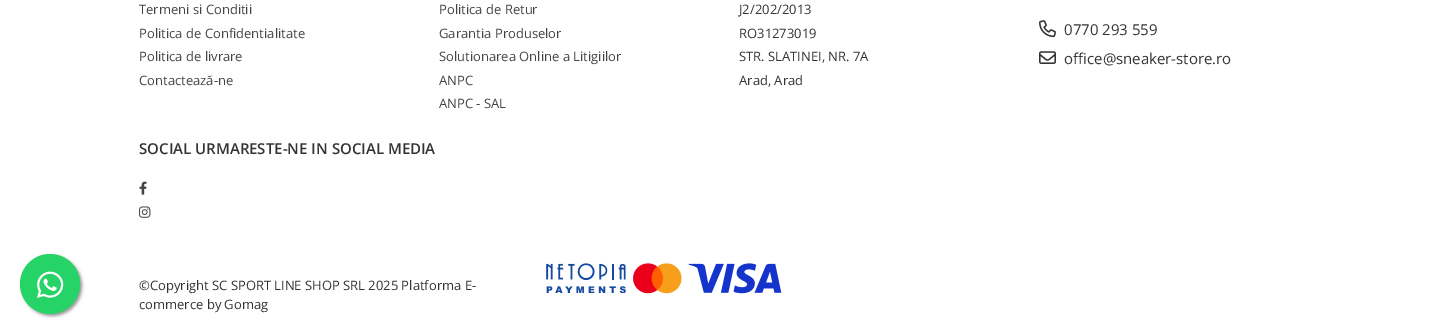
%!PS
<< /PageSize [1447 334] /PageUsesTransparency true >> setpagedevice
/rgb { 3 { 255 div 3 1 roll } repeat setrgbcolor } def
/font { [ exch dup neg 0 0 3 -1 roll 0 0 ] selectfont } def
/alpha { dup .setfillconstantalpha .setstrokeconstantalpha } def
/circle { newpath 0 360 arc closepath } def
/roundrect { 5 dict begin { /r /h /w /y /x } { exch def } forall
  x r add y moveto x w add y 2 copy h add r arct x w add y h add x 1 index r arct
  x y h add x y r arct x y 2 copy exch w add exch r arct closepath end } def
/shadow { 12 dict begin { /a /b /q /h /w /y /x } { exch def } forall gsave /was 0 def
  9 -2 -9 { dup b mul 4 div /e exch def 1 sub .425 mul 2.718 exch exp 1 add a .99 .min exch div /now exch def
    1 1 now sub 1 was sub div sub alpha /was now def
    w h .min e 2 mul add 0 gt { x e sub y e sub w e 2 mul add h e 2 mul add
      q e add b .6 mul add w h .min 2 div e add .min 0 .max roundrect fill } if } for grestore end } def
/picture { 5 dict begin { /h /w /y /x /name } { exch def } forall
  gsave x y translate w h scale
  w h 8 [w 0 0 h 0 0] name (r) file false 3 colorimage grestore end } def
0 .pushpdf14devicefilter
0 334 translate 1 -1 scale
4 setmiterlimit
255 255 255 rgb
0 0 1447 334 rectfill
153 153 153 rgb
22 256 60 60 30 1.5 1 shadow
37 211 102 rgb
50 284 30 circle fill
(img/1.rgb) 37 271 27 27 picture
(img/2.rgb) 1039 20 17 18 picture
(img/3.rgb) 1039 51 17 13 picture
(img/4.rgb) 139 181 8 14 picture
(img/5.rgb) 139 206 12 12 picture
(img/6.rgb) 546 263 236 31 picture
/OpenSans-Regular 13 font
68 68 68 rgb
[
  [(Termeni si Conditii) 139 14]
  [(Politica de Confidentialitate) 139 38]
  [(Politica de livrare) 139 61]
  [(Contactează-ne) 139 85]
  [(Politica de Retur) 439 14]
  [(Garantia Produselor) 439 38]
  [(Solutionarea Online a Litigiilor) 439 61]
  [(ANPC) 439 85]
  [(ANPC - SAL) 439 108]
] { aload pop moveto show } forall
51 51 51 rgb
[
  [(J2/202/2013) 739 14]
  [(RO31273019) 739 38]
  [(STR. SLATINEI, NR. 7A) 739 61]
  [(Arad, Arad) 739 85]
] { aload pop moveto show } forall
/OpenSans-Regular 15 font
1064 35 moveto (0770 293 559) show
1064 64 moveto (office@sneaker-store.ro) show
/OpenSans-SemiBold 15 font
139 154 moveto (SOCIAL URMARESTE-NE IN SOCIAL MEDIA) show
/OpenSans-Regular 13 font
139 290 moveto (©Copyright SC SPORT LINE SHOP SRL 2025 Platforma E-) show
139 309 moveto (commerce by Gomag) show
.poppdf14devicefilter showpage
